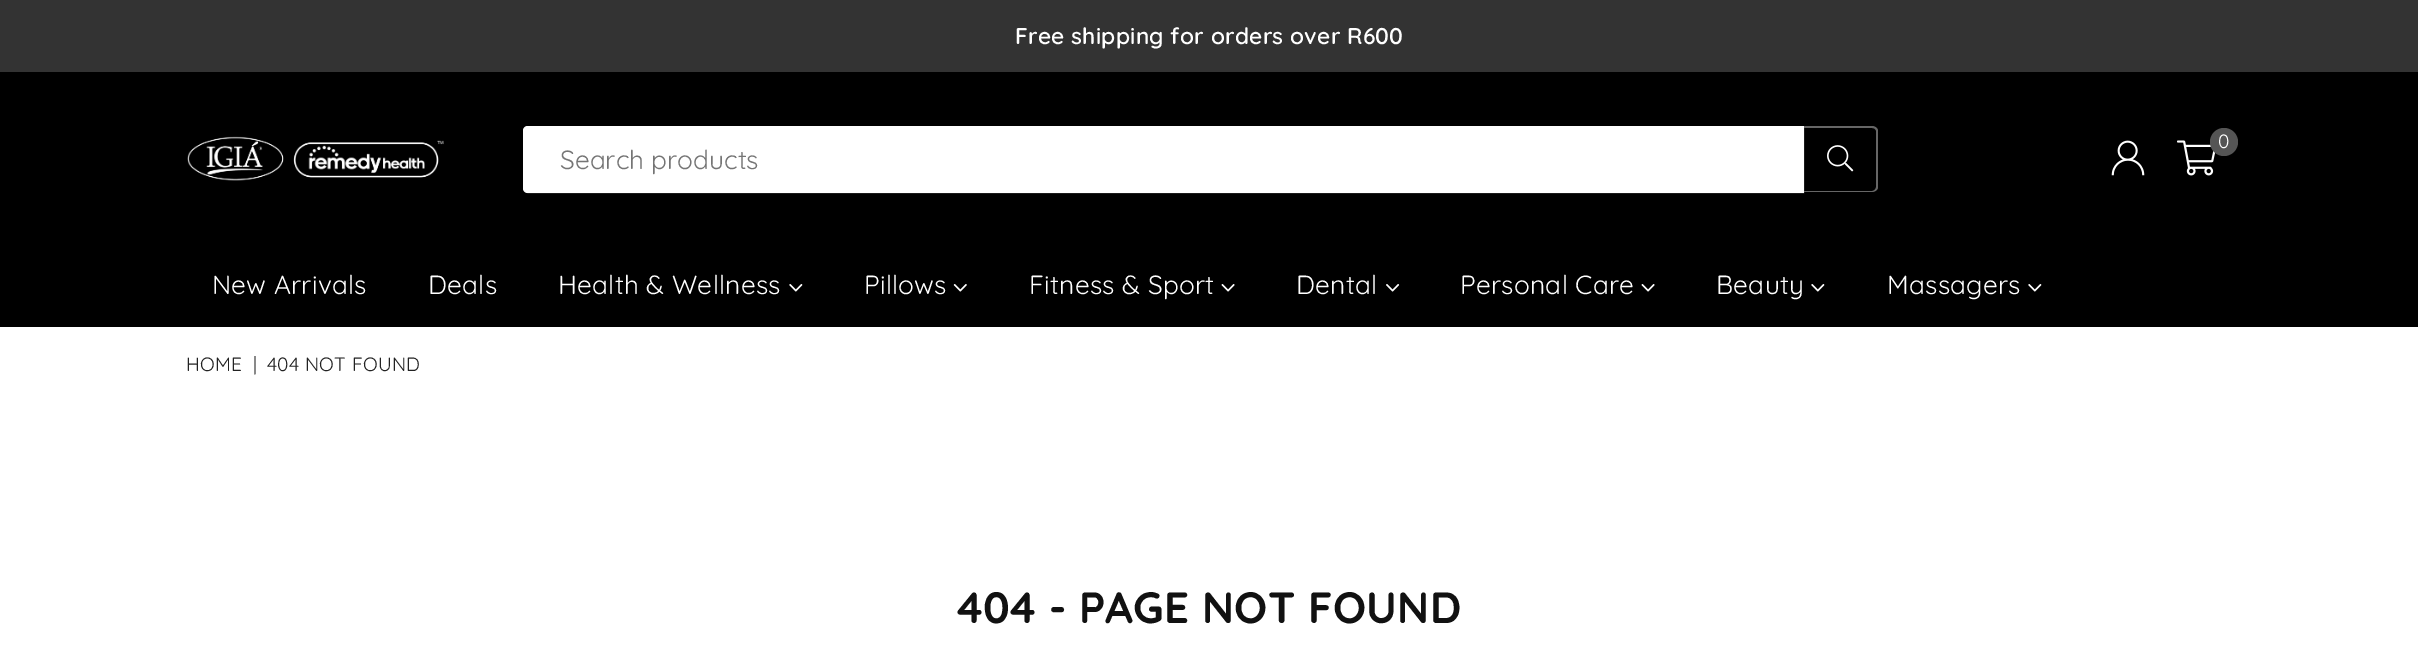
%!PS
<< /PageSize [2418 655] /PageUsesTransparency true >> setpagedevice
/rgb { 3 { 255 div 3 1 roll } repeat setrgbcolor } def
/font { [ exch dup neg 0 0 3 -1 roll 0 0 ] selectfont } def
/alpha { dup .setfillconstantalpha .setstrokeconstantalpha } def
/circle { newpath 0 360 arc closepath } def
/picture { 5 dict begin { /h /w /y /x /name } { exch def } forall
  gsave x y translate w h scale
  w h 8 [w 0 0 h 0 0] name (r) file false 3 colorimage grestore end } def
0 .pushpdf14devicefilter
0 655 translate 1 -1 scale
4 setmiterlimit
255 255 255 rgb
0 0 2418 655 rectfill
51 51 51 rgb
0 0 2418 72 rectfill
0 0 0 rgb
0 72 2418 255 rectfill
(img/1.rgb) 187 136 257 45 picture
255 255 255 rgb
528 126 moveto 1804 126 lineto 1804 193 lineto 528 193 lineto 525 193 523 191 523 188 curveto 523 131 lineto 523 128 525 126 528 126 curveto closepath fill
0.4 alpha
2 setlinewidth
528 127 moveto 1803 127 lineto 1803 192 lineto 528 192 lineto 526 192 524 190 524 188 curveto 524 131 lineto 524 129 526 127 528 127 curveto closepath stroke
1 alpha
102 102 102 rgb
1804 126 moveto 1872 126 lineto 1875 126 1878 128 1878 131 curveto 1878 187 lineto 1878 190 1875 192 1872 192 curveto 1804 192 lineto closepath 1804 128 moveto 1872 128 lineto 1874 128 1876 129 1876 131 curveto 1876 187 lineto 1876 189 1874 191 1872 191 curveto 1804 191 lineto closepath eofill
(img/2.rgb) 1827 145 27 27 picture
(img/3.rgb) 2111 140 34 36 picture
(img/4.rgb) 2177 140 39 36 picture
85 85 85 rgb
2224 142 14 circle fill
(img/5.rgb) 789 284 14 8 picture
(img/6.rgb) 953 284 14 8 picture
(img/7.rgb) 1221 284 14 8 picture
(img/8.rgb) 1386 284 14 8 picture
(img/7.rgb) 1641 284 14 8 picture
(img/5.rgb) 1811 284 14 8 picture
(img/5.rgb) 2028 284 14 8 picture
/Quicksand-SemiBold 22.75 font
255 255 255 rgb
1015 44 moveto 0.25 0 (Free shipping for orders over R600) ashow
/Quicksand-Regular 26.25 font
117 117 117 rgb
560 169 moveto (Search products) show
/Quicksand-Regular 19.25 font
255 255 255 rgb
2218 148 moveto 0.25 0 (0) ashow
/Quicksand-Regular 26.25 font
212 294 moveto 0.25 0 (New Arrivals) ashow
428 294 moveto 0.25 0 (Deals) ashow
558 294 moveto 0.25 0 (Health & Wellness) ashow
864 294 moveto 0.25 0 (Pillows) ashow
1029 294 moveto 0.25 0 (Fitness & Sport) ashow
1296 294 moveto 0.25 0 (Dental) ashow
1460 294 moveto 0.25 0 (Personal Care) ashow
1716 294 moveto 0.25 0 (Beauty) ashow
1887 294 moveto 0.25 0 (Massagers) ashow
/Quicksand-Regular 19.25 font
34 34 34 rgb
186 371 moveto 0.25 0 (HOME) ashow
253 371 moveto 0.25 0 (|) ashow
267 371 moveto 0.25 0 (404 NOT FOUND) ashow
/Quicksand-Bold 43.75 font
17 17 17 rgb
957 623 moveto 0.25 0 (404 - PAGE NOT FOUND) ashow
.poppdf14devicefilter showpage
